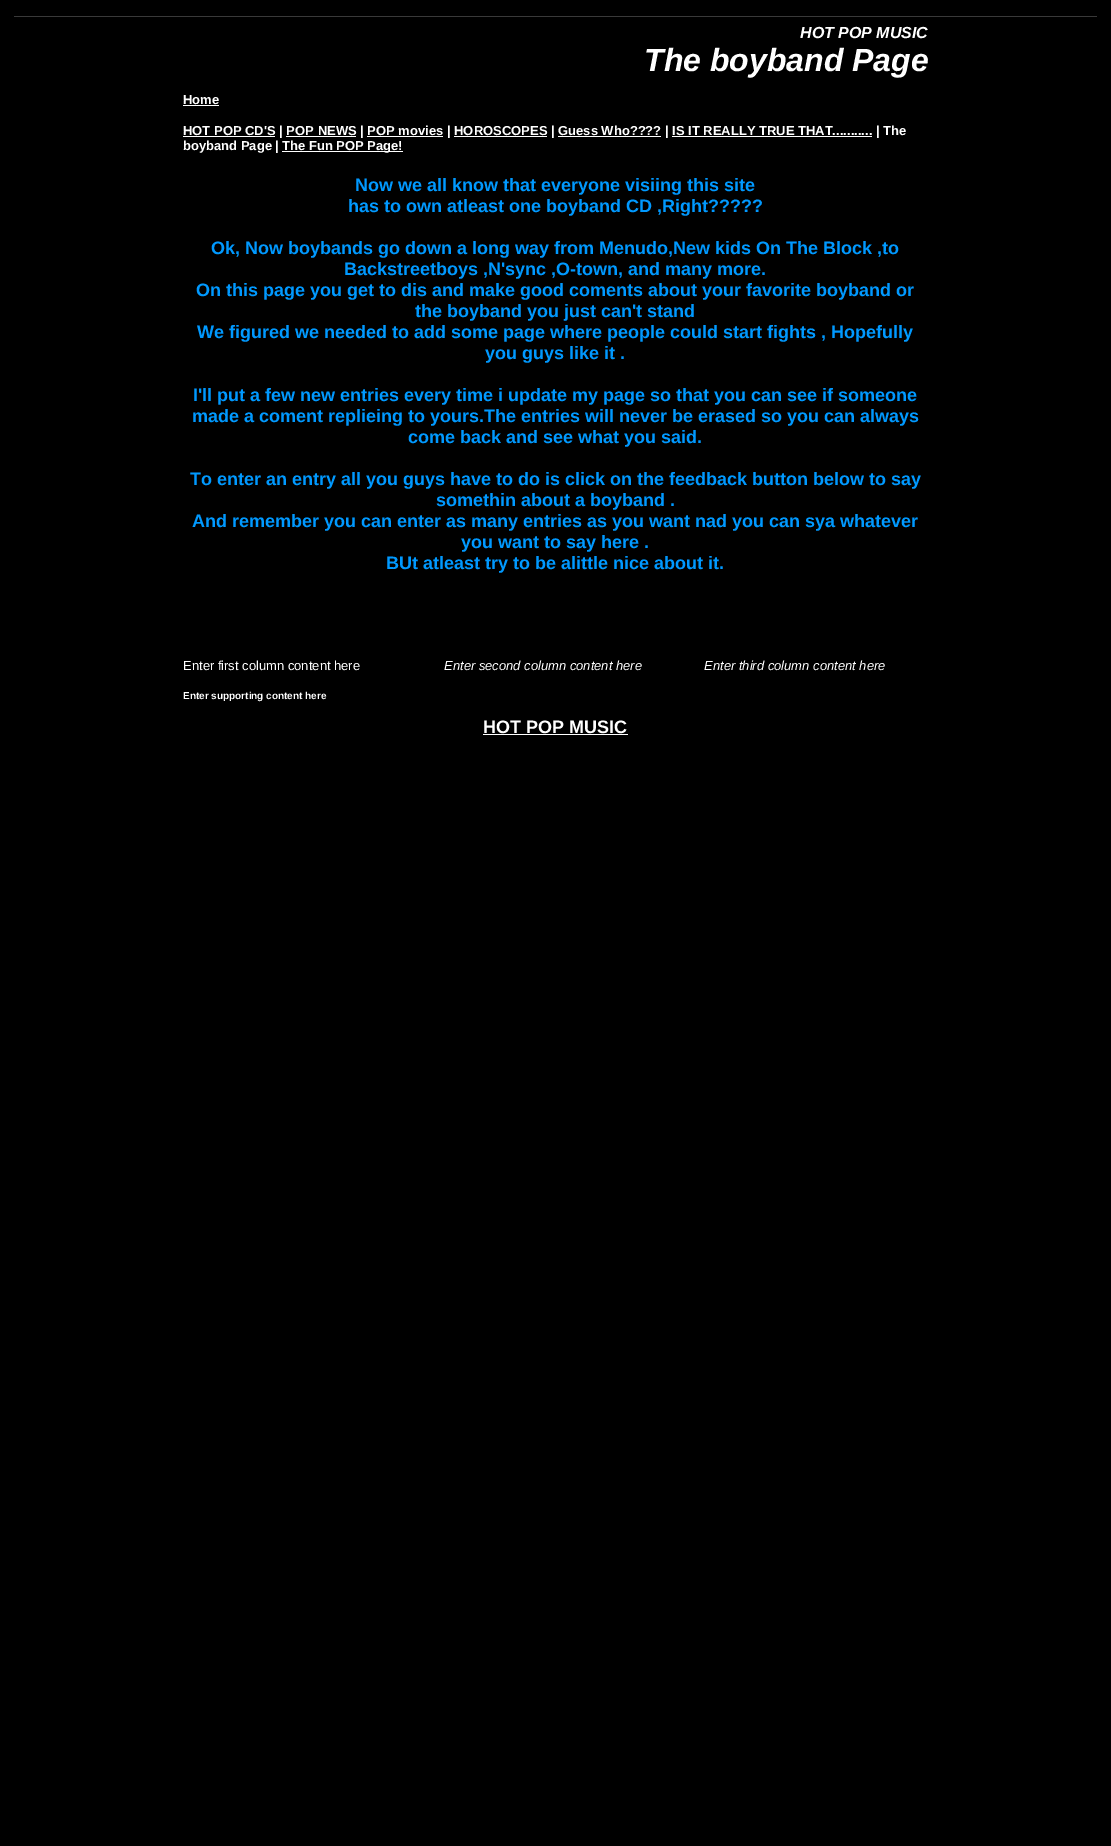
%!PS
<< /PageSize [1111 1846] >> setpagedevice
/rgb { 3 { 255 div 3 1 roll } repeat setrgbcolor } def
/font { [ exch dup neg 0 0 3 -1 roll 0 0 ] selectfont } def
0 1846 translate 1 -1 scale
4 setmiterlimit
0 0 0 rgb
0 0 1111 1846 rectfill
[
  [14 16 1083 1 57 57 57]
  [183 105 36 1 255 255 255]
  [183 136 92 1 255 255 255]
  [286 136 70 1 255 255 255]
  [367 136 76 1 255 255 255]
  [454 136 93 1 255 255 255]
  [558 136 103 1 255 255 255]
  [672 136 200 1 255 255 255]
  [282 151 121 1 255 255 255]
  [483 734 145 1 255 255 255]
] { aload pop rgb rectfill } forall
/LiberationSans-BoldItalic 16 font
800 38 moveto (HOT POP MUSIC) show
/LiberationSans-BoldItalic 32 font
644 71 moveto (The boyband Page) show
/LiberationSans-Bold 13 font
[
  [(Home) 183 104]
  [(HOT POP CD'S | POP NEWS | POP movies | HOROSCOPES | Guess Who???? | IS IT REALLY TRUE THAT........... | The) 183 135]
  [(boyband Page |) 183 150]
  [(The Fun POP Page!) 282 150]
] { aload pop moveto show } forall
/LiberationSans-Bold 18 font
0 153 255 rgb
[
  [(Now we all know that everyone visiing this site) 355 191]
  [(has to own atleast one boyband CD ,Right?????) 348 212]
  [(Ok, Now boybands go down a long way from Menudo,New kids On The Block ,to) 211 254]
  [(Backstreetboys ,N'sync ,O-town, and many more.) 344 275]
  [(On this page you get to dis and make good coments about your favorite boyband or) 196 296]
  [(the boyband you just can't stand) 415 317]
  [(We figured we needed to add some page where people could start fights , Hopefully) 197 338]
  [(you guys like it .) 485 359]
  [(I'll put a few new entries every time i update my page so that you can see if someone) 193 401]
  [(made a coment replieing to yours.The entries will never be erased so you can always) 192 422]
  [(come back and see what you said.) 408 443]
  [(To enter an entry all you guys have to do is click on the feedback button below to say) 190 485]
  [(somethin about a boyband .) 436 506]
  [(And remember you can enter as many entries as you want nad you can sya whatever) 192 527]
  [(you want to say here .) 461 548]
  [(BUt atleast try to be alittle nice about it.) 386 569]
] { aload pop moveto show } forall
/LiberationSans-Regular 13 font
255 255 255 rgb
183 670 moveto (Enter first column content here) show
/LiberationSans-Italic 13 font
444 670 moveto (Enter second column content here) show
704 670 moveto (Enter third column content here) show
/LiberationSans-Bold 10 font
183 699 moveto (Enter supporting content here) show
/LiberationSans-Bold 18 font
483 733 moveto (HOT POP MUSIC) show
showpage
